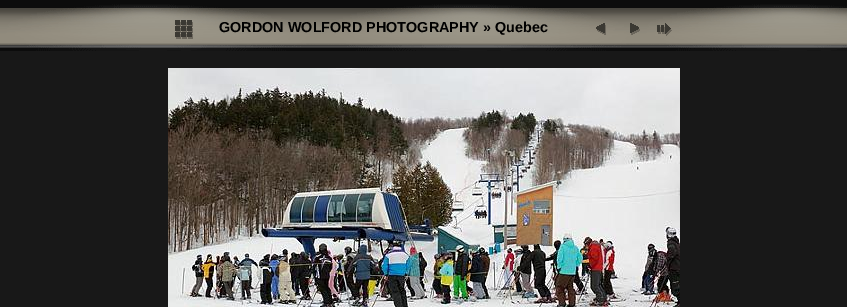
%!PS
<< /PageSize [847 307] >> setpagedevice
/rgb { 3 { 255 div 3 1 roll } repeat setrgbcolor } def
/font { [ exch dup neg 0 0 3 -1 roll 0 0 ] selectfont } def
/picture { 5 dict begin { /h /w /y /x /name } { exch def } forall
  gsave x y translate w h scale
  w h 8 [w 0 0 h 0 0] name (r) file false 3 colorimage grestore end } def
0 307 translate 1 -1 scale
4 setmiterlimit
24 24 24 rgb
0 0 847 307 rectfill
(img/1.rgb) 0 0 847 51 picture
(img/2.rgb) 175 20 18 19 picture
(img/3.rgb) 596 23 10 12 picture
(img/4.rgb) 630 23 10 12 picture
(img/5.rgb) 657 23 15 13 picture
(img/6.rgb) 168 68 512 239 picture
/LiberationSans-Bold 14.4 font
0 0 0 rgb
219 32 moveto (GORDON WOLFORD PHOTOGRAPHY » Quebec) show
showpage
